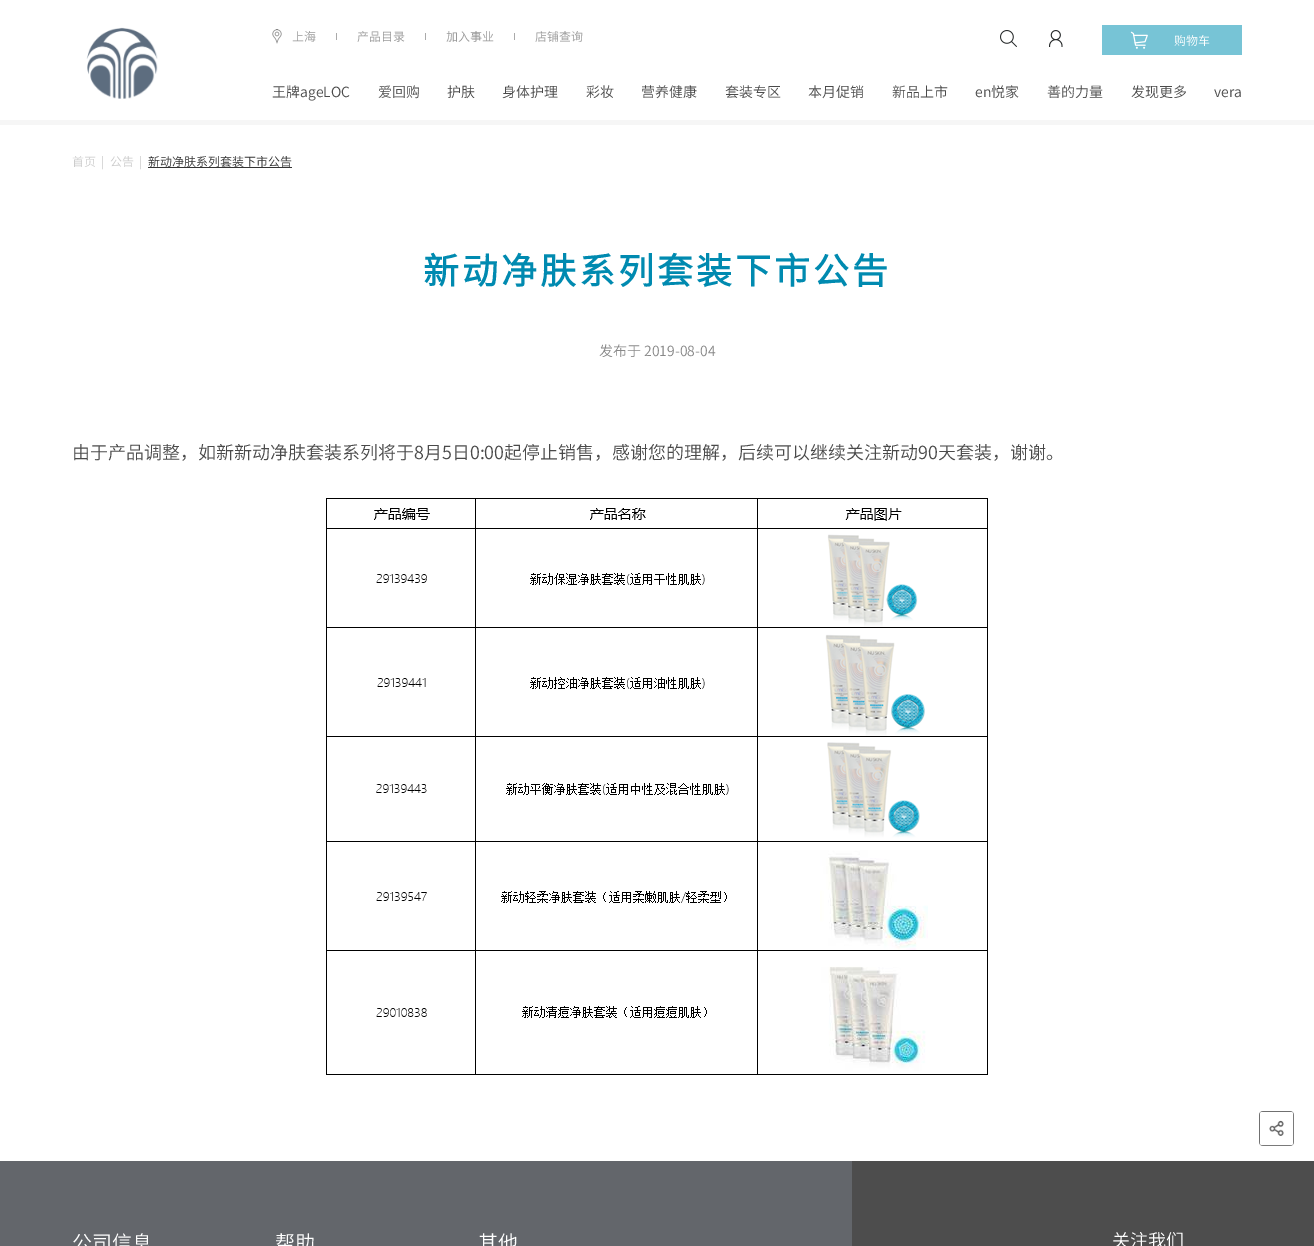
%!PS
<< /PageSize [1314 1246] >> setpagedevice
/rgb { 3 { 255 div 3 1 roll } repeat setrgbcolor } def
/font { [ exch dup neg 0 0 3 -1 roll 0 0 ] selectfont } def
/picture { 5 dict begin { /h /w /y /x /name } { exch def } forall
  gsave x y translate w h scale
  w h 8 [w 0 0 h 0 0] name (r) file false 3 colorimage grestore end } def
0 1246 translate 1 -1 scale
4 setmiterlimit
255 255 255 rgb
0 0 1314 1246 rectfill
(img/1.rgb) 86 27 72 72 picture
(img/2.rgb) 272 29 10 15 picture
[
  [336 33 1 7 170 170 170]
  [425 33 1 7 170 170 170]
  [514 33 1 7 170 170 170]
] { aload pop rgb rectfill } forall
(img/3.rgb) 1000 30 17 17 picture
(img/4.rgb) 1049 30 14 17 picture
119 196 214 rgb
1102 25 140 30 rectfill
(img/5.rgb) 1130 31 18 18 picture
246 246 246 rgb
0 120 1314 5 rectfill
51 51 51 rgb
148 167 144 1 rectfill
(img/6.rgb) 326 498 662 577 picture
(img/7.rgb) 1259 1111 35 35 picture
(img/8.rgb) 0 1161 1314 85 picture
99 102 107 rgb
841 1161 11 85 rectfill
/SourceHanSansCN-Light 12 font
153 153 153 rgb
[
  [(上海) 292 41]
  [(产品目录) 357 41]
  [(加入事业) 446 41]
  [(店铺查询) 535 41]
] { aload pop moveto show } forall
255 255 255 rgb
1174 45 moveto (购物车) show
/SourceHanSansCN-Light 14 font
74 74 74 rgb
[
  [(王牌ageLOC) 272 97]
  [(爱回购) 378 97]
  [(护肤) 447 97]
  [(身体护理) 502 97]
  [(彩妆) 586 97]
  [(营养健康) 641 97]
  [(套装专区) 725 97]
  [(本月促销) 808 97]
  [(新品上市) 892 97]
  [(en悦家) 975 97]
  [(善的力量) 1047 97]
  [(发现更多) 1131 97]
  [(vera) 1214 97]
] { aload pop moveto show } forall
/SourceHanSansCN-Light 12 font
204 204 204 rgb
[
  [(首页) 72 166]
  [(|) 101 166]
  [(公告) 110 166]
  [(|) 139 166]
] { aload pop moveto show } forall
51 51 51 rgb
148 166 moveto (新动净肤系列套装下市公告) show
/SourceHanSansCN-Bold 36 font
0 138 176 rgb
423 284 moveto 3 0 (新动净肤系列套装下市公告) ashow
/SourceHanSansCN-Light 14 font
136 136 136 rgb
599 356 moveto (发布于 2019-08-04) show
/SourceHanSansCN-Light 18 font
74 74 74 rgb
72 459 moveto (由于产品调整，如新新动净肤套装系列将于8月5日0:00起停止销售，感谢您的理解，后续可以继续关注新动90天套装，谢谢。) show
/SourceHanSansCN-Light 20 font
255 255 255 rgb
[
  [(公司信息) 72 1250]
  [(帮助) 275 1250]
  [(其他) 478 1250]
] { aload pop moveto show } forall
/SourceHanSansCN-Light 18 font
1112 1247 moveto (关注我们) show
showpage
